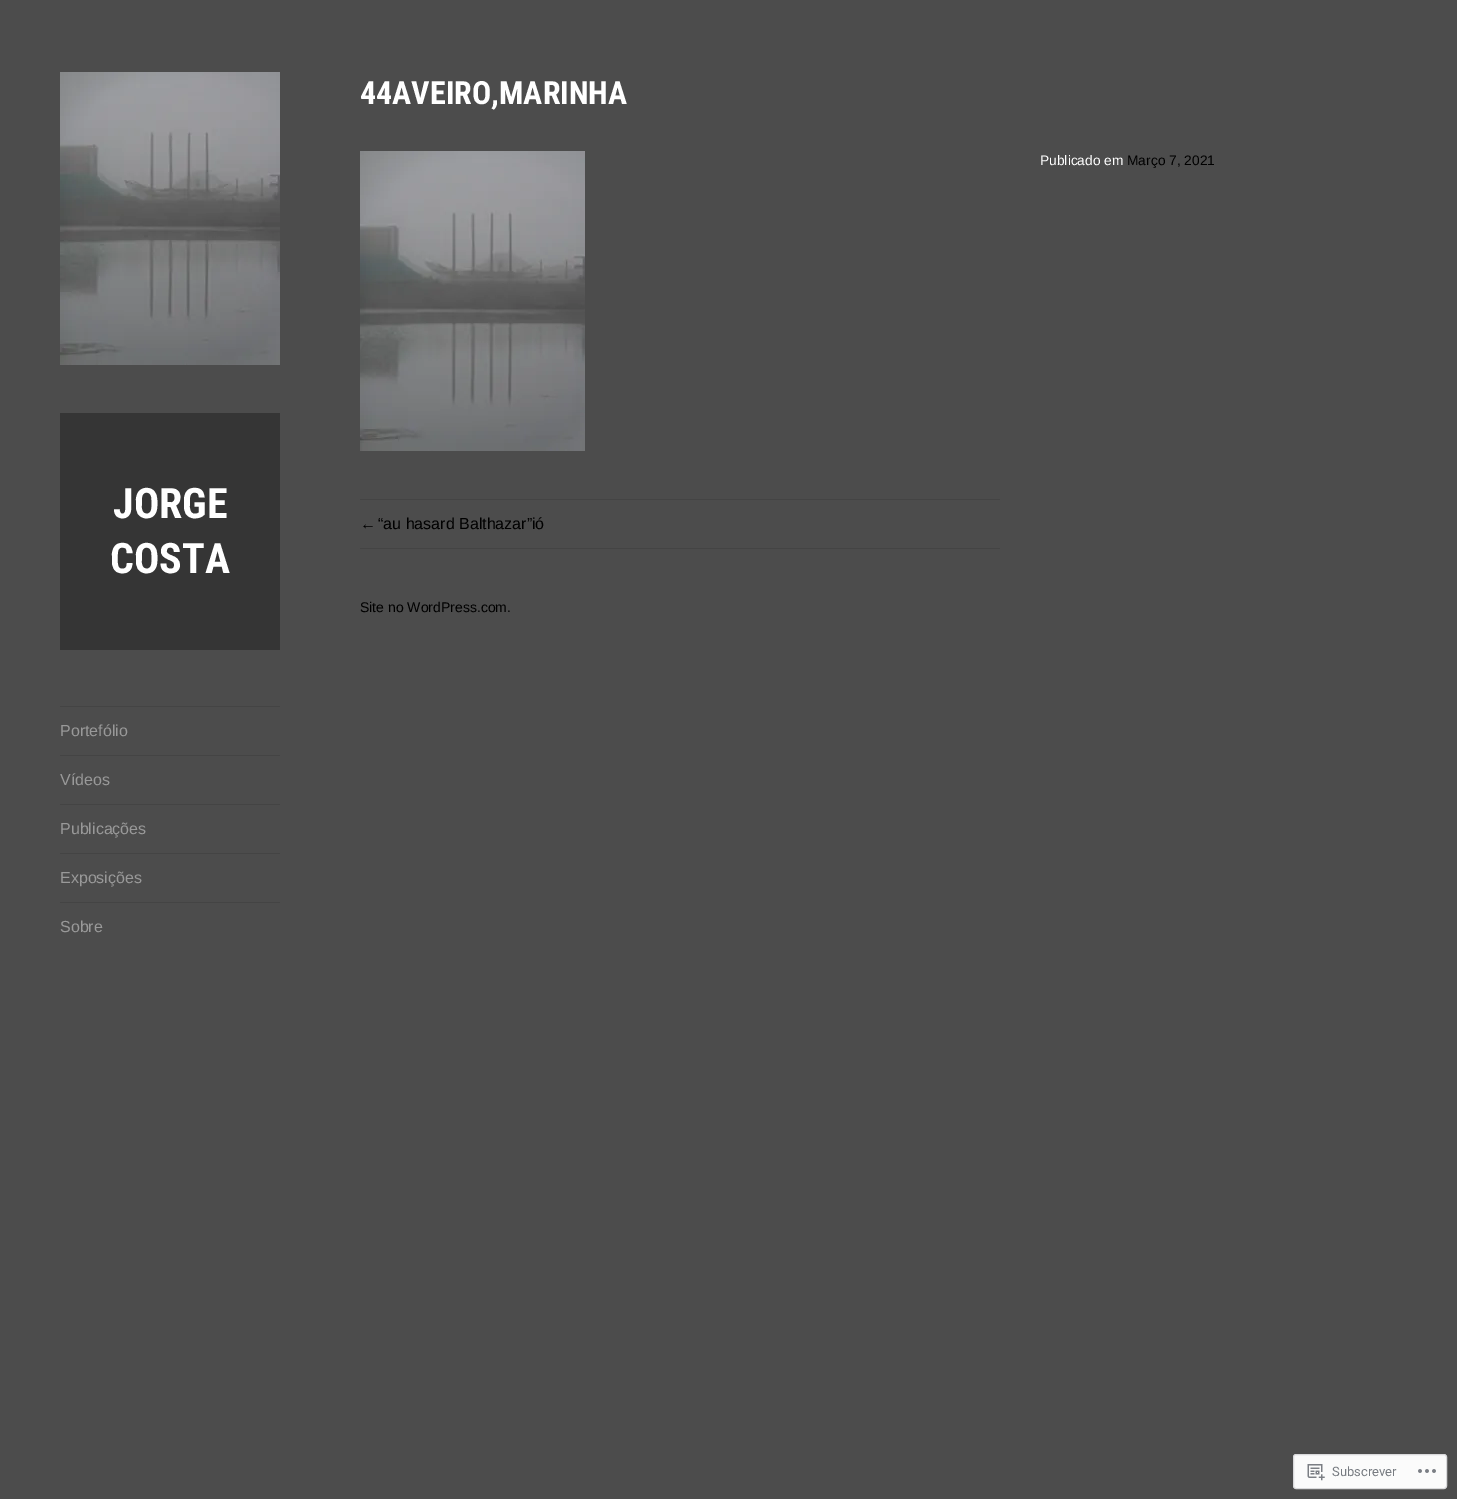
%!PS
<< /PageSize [1457 1499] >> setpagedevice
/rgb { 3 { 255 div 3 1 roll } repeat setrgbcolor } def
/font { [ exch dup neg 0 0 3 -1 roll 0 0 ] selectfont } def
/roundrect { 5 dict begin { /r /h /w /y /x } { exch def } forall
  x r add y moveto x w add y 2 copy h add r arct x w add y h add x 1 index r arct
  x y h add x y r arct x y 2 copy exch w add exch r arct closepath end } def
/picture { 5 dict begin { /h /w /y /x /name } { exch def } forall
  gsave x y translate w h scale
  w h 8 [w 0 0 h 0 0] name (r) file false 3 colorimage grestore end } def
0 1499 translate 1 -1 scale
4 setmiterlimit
76 76 76 rgb
0 0 1457 1499 rectfill
(img/1.rgb) 360 151 225 300 picture
68 68 68 rgb
360 499 640 1 rectfill
360 548 640 1 rectfill
(img/2.rgb) 60 72 220 293 picture
[
  [60 413 220 237 53 53 53]
  [60 706 220 1 68 68 68]
  [60 755 220 1 68 68 68]
  [60 804 220 1 68 68 68]
  [60 853 220 1 68 68 68]
  [60 902 220 1 68 68 68]
] { aload pop rgb rectfill } forall
251 251 251 rgb
1293.5 1454.5 153 34 2.5 roundrect gsave fill grestore
217 217 219 rgb
stroke
(img/3.rgb) 1307 1464 18 17 picture
(img/4.rgb) 1418 1469 18 4 picture
/RobotoCondensed-Bold 32 font
255 255 255 rgb
360 104 moveto (44AVEIRO,MARINHA) show
/Arimo-Regular 13.75 font
1040 165 moveto (Publicado em) show
0 0 0 rgb
1127 165 moveto (Março 7, 2021) show
/LiberationSans-Regular 16 font
360 529 moveto (←) show
/Arimo-Regular 16 font
378 529 moveto (“au hasard Balthazar”ió) show
/Arimo-Regular 14 font
360 612 moveto (Site no WordPress.com.) show
/RobotoCondensed-Bold 42 font
255 255 255 rgb
113 518 moveto (JORGE) show
110 573 moveto (COSTA) show
/Arimo-Regular 16 font
153 153 153 rgb
[
  [(Portefólio) 60 736]
  [(Vídeos) 60 785]
  [(Publicações) 60 834]
  [(Exposições) 60 883]
  [(Sobre) 60 932]
] { aload pop moveto show } forall
/Roboto-Regular 13 font
119 123 129 rgb
1332 1476 moveto (Subscrever) show
showpage
